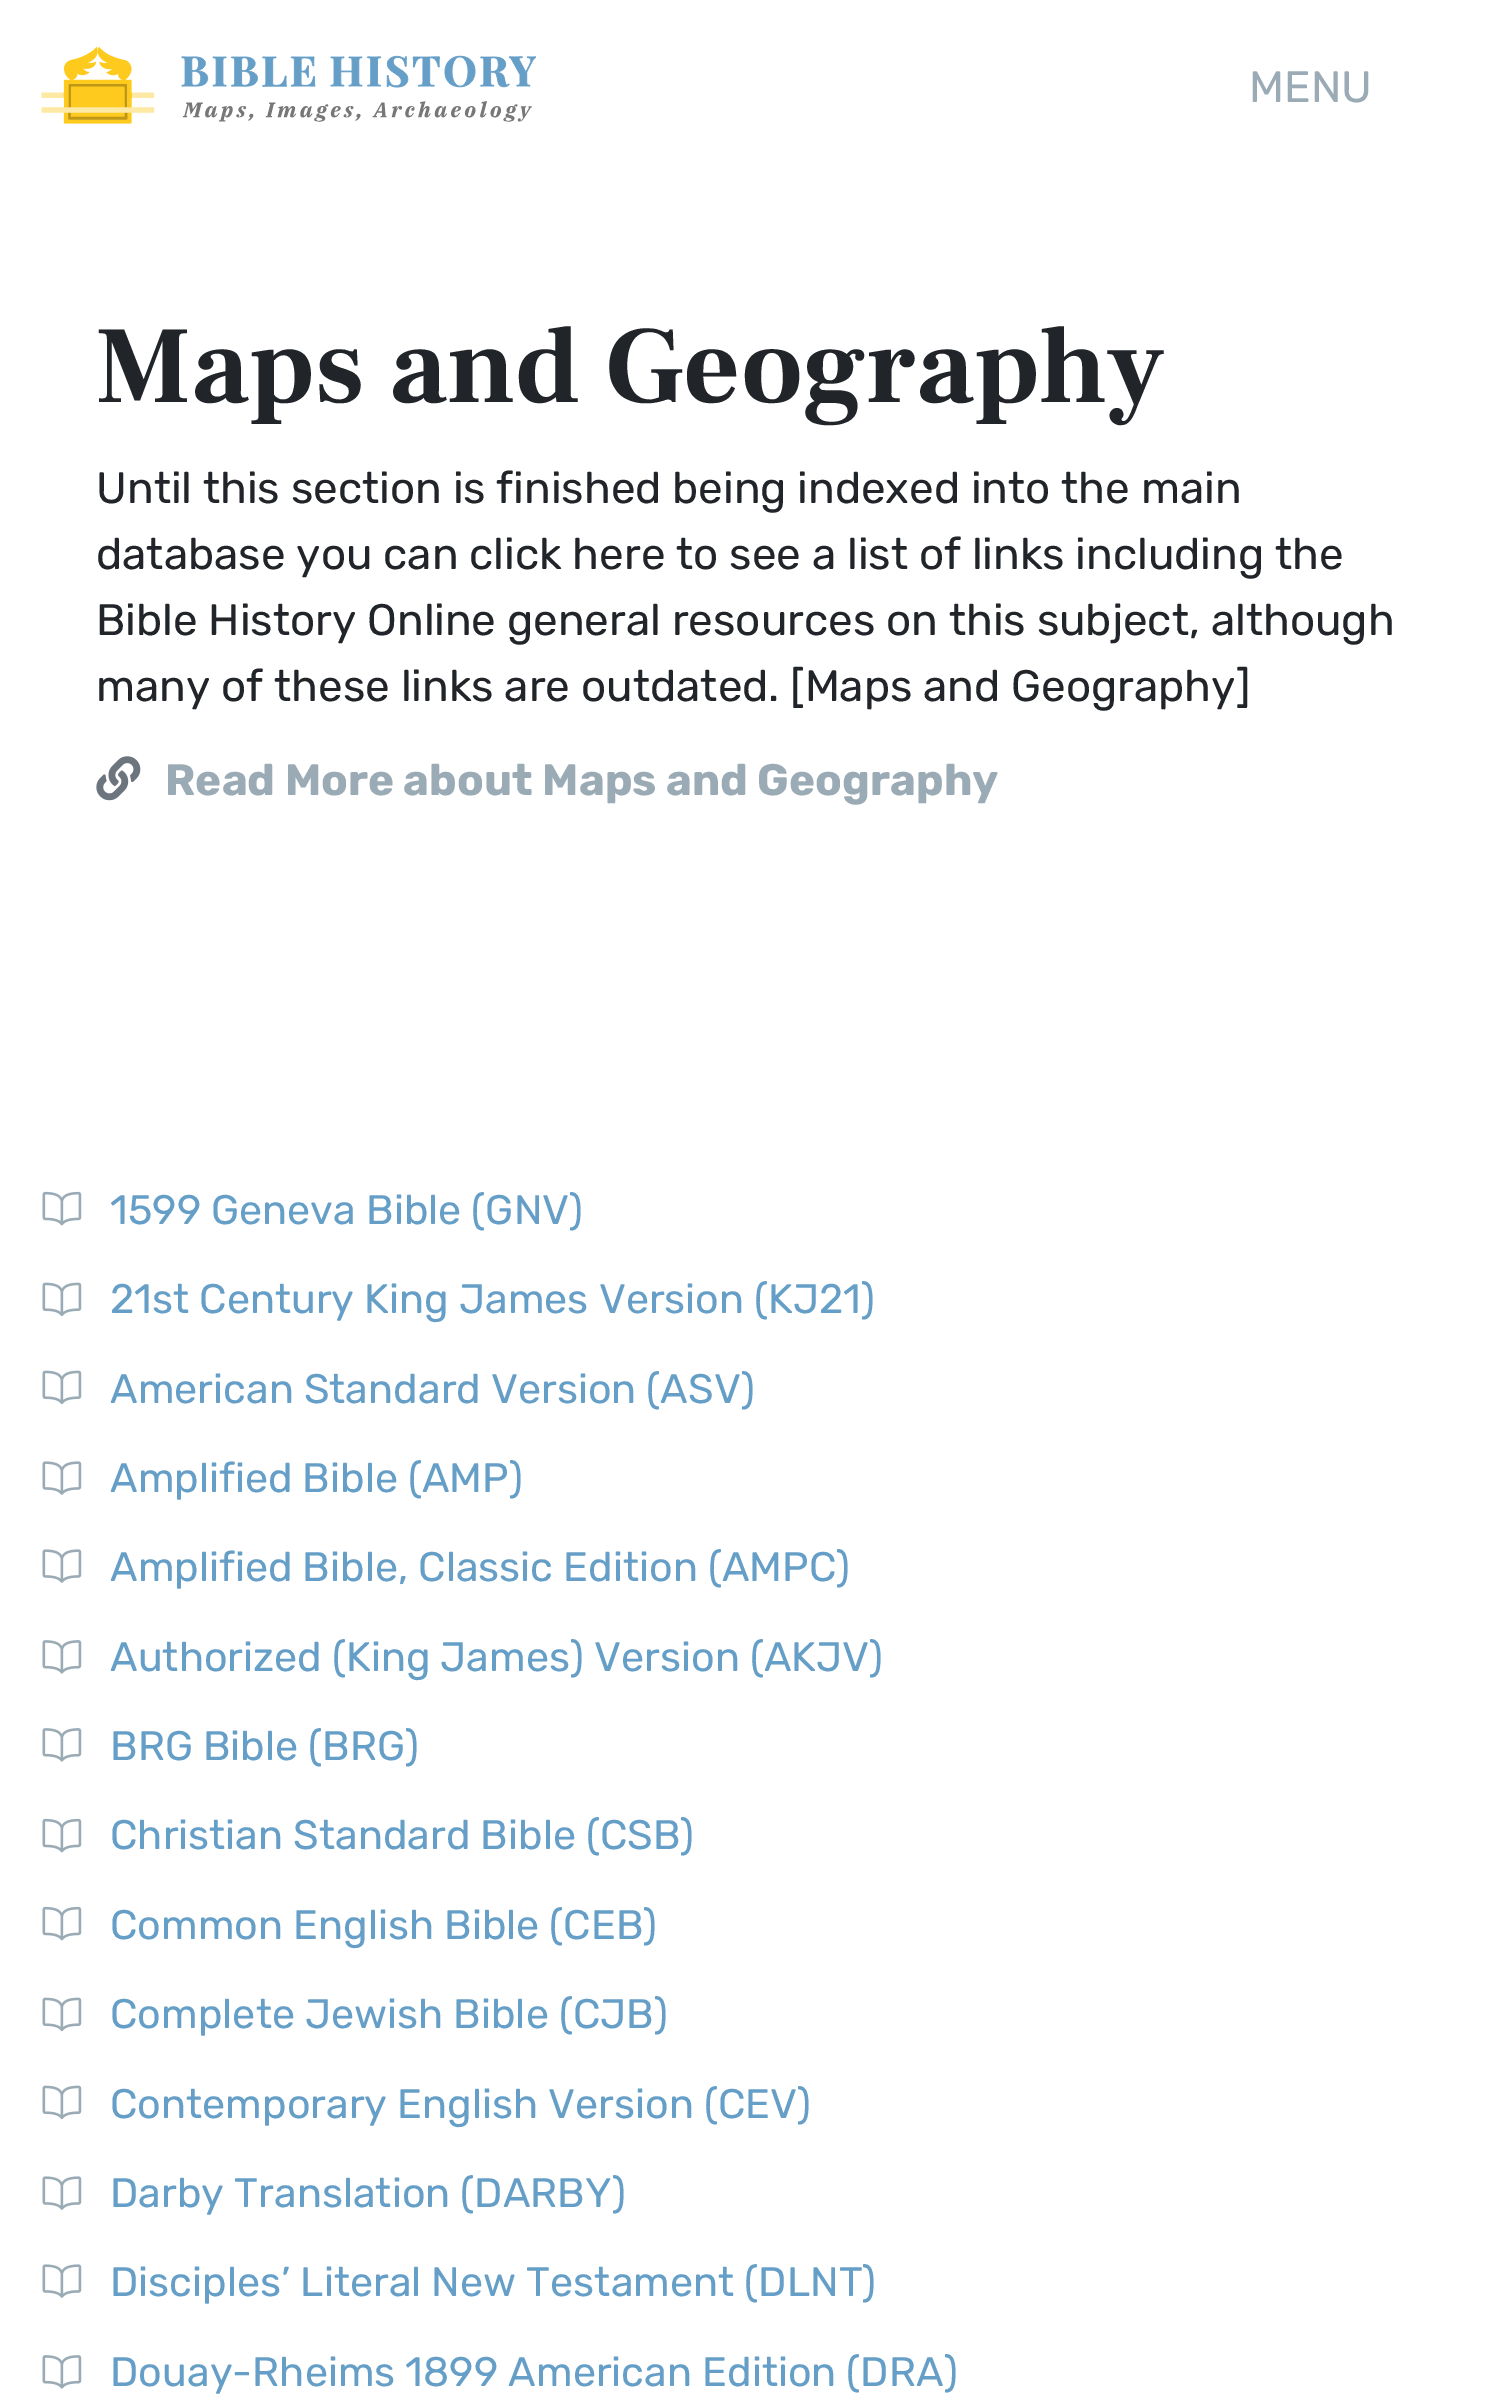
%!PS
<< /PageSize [1508 2406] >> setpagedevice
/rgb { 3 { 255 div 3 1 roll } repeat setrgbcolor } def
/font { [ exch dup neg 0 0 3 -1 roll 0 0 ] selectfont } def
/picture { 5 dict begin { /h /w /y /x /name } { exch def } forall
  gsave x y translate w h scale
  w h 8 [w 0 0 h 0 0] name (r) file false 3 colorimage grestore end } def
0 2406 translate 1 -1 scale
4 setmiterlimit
255 255 255 rgb
0 0 1508 2406 rectfill
(img/1.rgb) 41 47 495 77 picture
(img/2.rgb) 96 756 45 45 picture
(img/3.rgb) 42 1191 40 35 picture
(img/4.rgb) 42 1282 40 35 picture
(img/4.rgb) 42 1370 40 35 picture
(img/5.rgb) 42 1461 40 34 picture
(img/5.rgb) 42 1549 40 34 picture
(img/6.rgb) 42 1640 40 34 picture
(img/6.rgb) 42 1728 40 34 picture
(img/3.rgb) 42 1818 40 35 picture
(img/3.rgb) 42 1906 40 35 picture
(img/4.rgb) 42 1997 40 35 picture
(img/4.rgb) 42 2085 40 35 picture
(img/5.rgb) 42 2176 40 34 picture
(img/5.rgb) 42 2264 40 34 picture
(img/6.rgb) 42 2355 40 34 picture
/Rubik-Regular 44 font
155 171 182 rgb
1249 102 moveto (MENU) show
/FrankRuhlLibre-Bold 110 font
33 37 41 rgb
96 402 moveto (Maps and Geography) show
/Rubik-Regular 44 font
[
  [(Until this section is finished being indexed into the main) 96 503]
  [(database you can click here to see a list of links including the) 96 569]
  [(Bible History Online general resources on this subject, although) 96 635]
  [(many of these links are outdated. [Maps and Geography]) 96 701]
] { aload pop moveto show } forall
/Rubik-Bold 44 font
155 171 182 rgb
165 795 moveto (Read More about Maps and Geography) show
/Rubik-Regular 41.25 font
101 158 199 rgb
[
  [(1599 Geneva Bible \(GNV\)) 110 1224]
  [(21st Century King James Version \(KJ21\)) 110 1313]
  [(American Standard Version \(ASV\)) 110 1403]
  [(Amplified Bible \(AMP\)) 110 1492]
  [(Amplified Bible, Classic Edition \(AMPC\)) 110 1581]
  [(Authorized \(King James\) Version \(AKJV\)) 110 1671]
  [(BRG Bible \(BRG\)) 110 1760]
  [(Christian Standard Bible \(CSB\)) 110 1849]
  [(Common English Bible \(CEB\)) 110 1939]
  [(Complete Jewish Bible \(CJB\)) 110 2028]
  [(Contemporary English Version \(CEV\)) 110 2118]
  [(Darby Translation \(DARBY\)) 110 2207]
  [(Disciples’ Literal New Testament \(DLNT\)) 110 2296]
  [(Douay-Rheims 1899 American Edition \(DRA\)) 110 2386]
] { aload pop moveto show } forall
showpage
